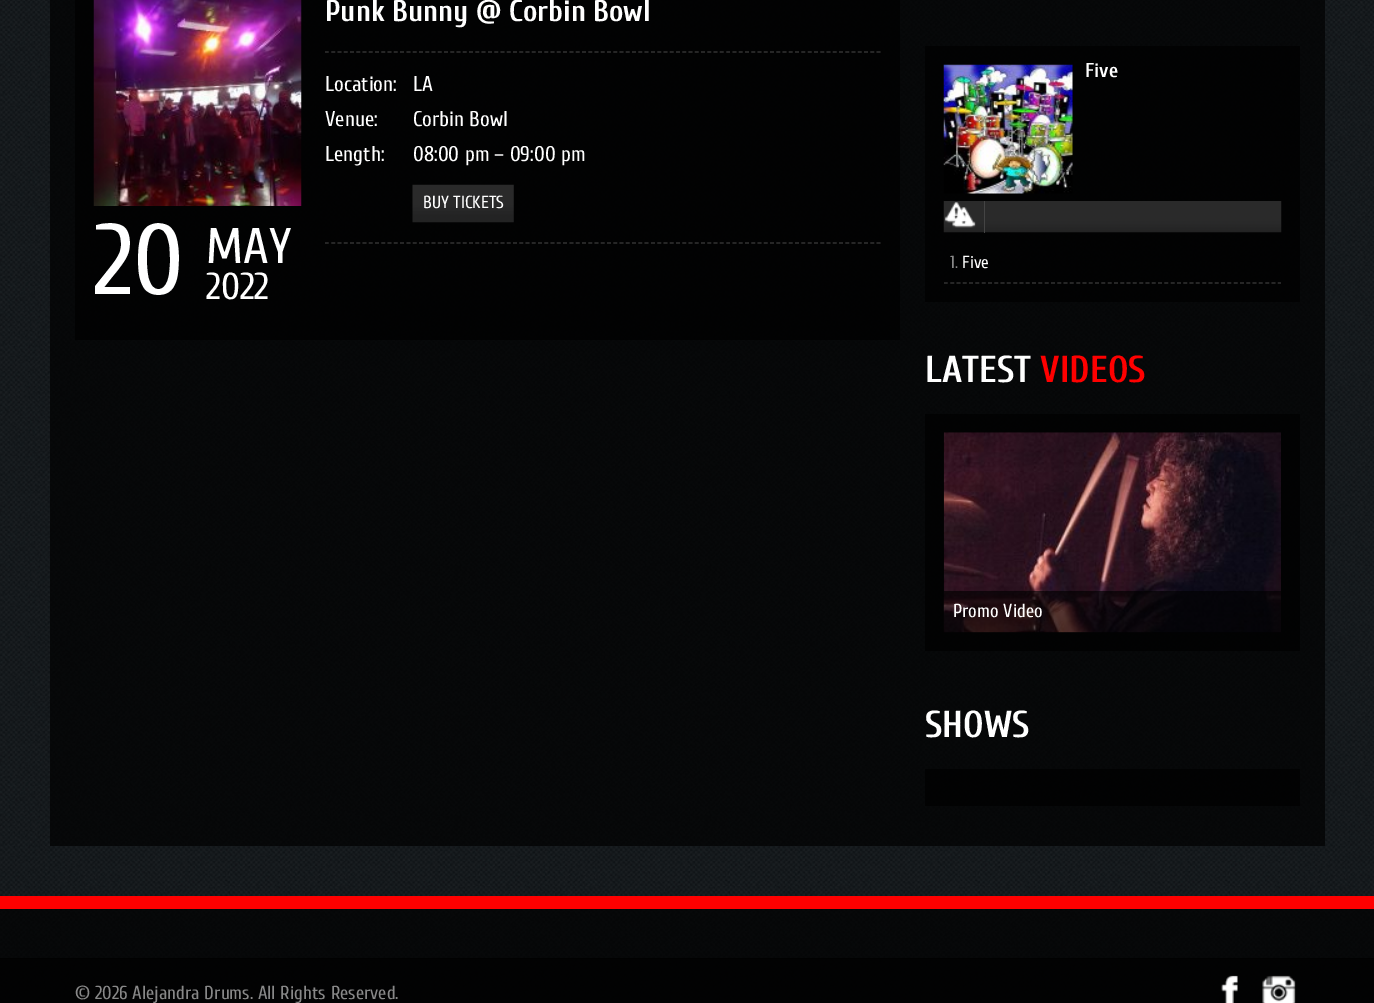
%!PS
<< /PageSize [1374 1003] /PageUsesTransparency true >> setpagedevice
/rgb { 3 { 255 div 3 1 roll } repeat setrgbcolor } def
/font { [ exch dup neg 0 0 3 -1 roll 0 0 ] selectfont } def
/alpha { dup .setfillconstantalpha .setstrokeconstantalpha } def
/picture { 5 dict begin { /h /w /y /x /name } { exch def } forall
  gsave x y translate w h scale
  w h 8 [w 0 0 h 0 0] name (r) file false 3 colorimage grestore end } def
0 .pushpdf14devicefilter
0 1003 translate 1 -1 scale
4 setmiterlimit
255 255 255 rgb
0 0 1374 1003 rectfill
(img/1.rgb) 0 0 1374 1003 picture
0.7 alpha
0 0 0 rgb
50 0 1275 846 rectfill
75 0 825 340 rectfill
1 alpha
51 51 51 rgb
1.2 setlinewidth
[3.75 2.52] 0 setdash
325 52 moveto 881 52 lineto stroke
325 243 moveto 881 243 lineto stroke
(img/2.rgb) 412 184 102 39 picture
(img/3.rgb) 93 0 209 206 picture
0.7 alpha
0 0 0 rgb
925 46 375 256 rectfill
1 alpha
(img/4.rgb) 943 64 130 130 picture
(img/5.rgb) 943 201 339 32 picture
(img/6.rgb) 944 202 23 21 picture
68 68 68 rgb
984 201 1 32 rectfill
(img/7.rgb) 952 207 24 21 picture
51 51 51 rgb
[3.75 2.55] 0 setdash
944 283 moveto 1281 283 lineto stroke
0.7 alpha
0 0 0 rgb
925 414 375 237 rectfill
1 alpha
(img/8.rgb) 943 432 338 201 picture
0.64 alpha
[
  [944 591 337 41 0 0 0]
] { aload pop rgb rectfill } forall
0.7 alpha
[
  [925 769 375 37 0 0 0]
  [0 909 1374 50 0 0 0]
] { aload pop rgb rectfill } forall
1 alpha
[
  [0 896 1374 13 255 0 0]
] { aload pop rgb rectfill } forall
0.91 alpha
[
  [0 958 1374 45 0 0 0]
] { aload pop rgb rectfill } forall
1 alpha
(img/9.rgb) 1221 975 17 28 picture
(img/10.rgb) 1262 975 34 28 picture
/Cuprum-Bold 30 font
255 255 255 rgb
325 21 moveto (Punk Bunny @ Corbin Bowl) show
/Cuprum-Regular 21.25 font
[
  [(Location:) 325 91]
  [(LA) 413 91]
  [(Venue:) 325 126]
  [(Corbin Bowl) 413 126]
  [(Length:) 325 161]
  [(08:00 pm – 09:00 pm) 413 161]
] { aload pop moveto show } forall
/Cuprum-Regular 17.5 font
423 208 moveto (BUY TICKETS) show
/Cuprum-Regular 100 font
94 294 moveto (20) show
/Cuprum-Regular 50 font
206 263 moveto (MAY) show
/Cuprum-Regular 37.5 font
206 299 moveto (2022) show
/Cuprum-Bold 20 font
1085 77 moveto (Five) show
/Cuprum-Regular 17.5 font
136 136 136 rgb
950 268 moveto (1.) show
255 255 255 rgb
962 268 moveto (Five) show
/Cuprum-Bold 37.5 font
925 382 moveto (LATEST) show
255 0 0 rgb
1040 382 moveto (VIDEOS) show
/Cuprum-Regular 18.75 font
255 255 255 rgb
953 617 moveto (Promo Video) show
/Cuprum-Bold 37.5 font
925 737 moveto (SHOWS) show
/Cuprum-Regular 18.75 font
136 136 136 rgb
75 999 moveto (© 2026 Alejandra Drums. All Rights Reserved.) show
.poppdf14devicefilter showpage
